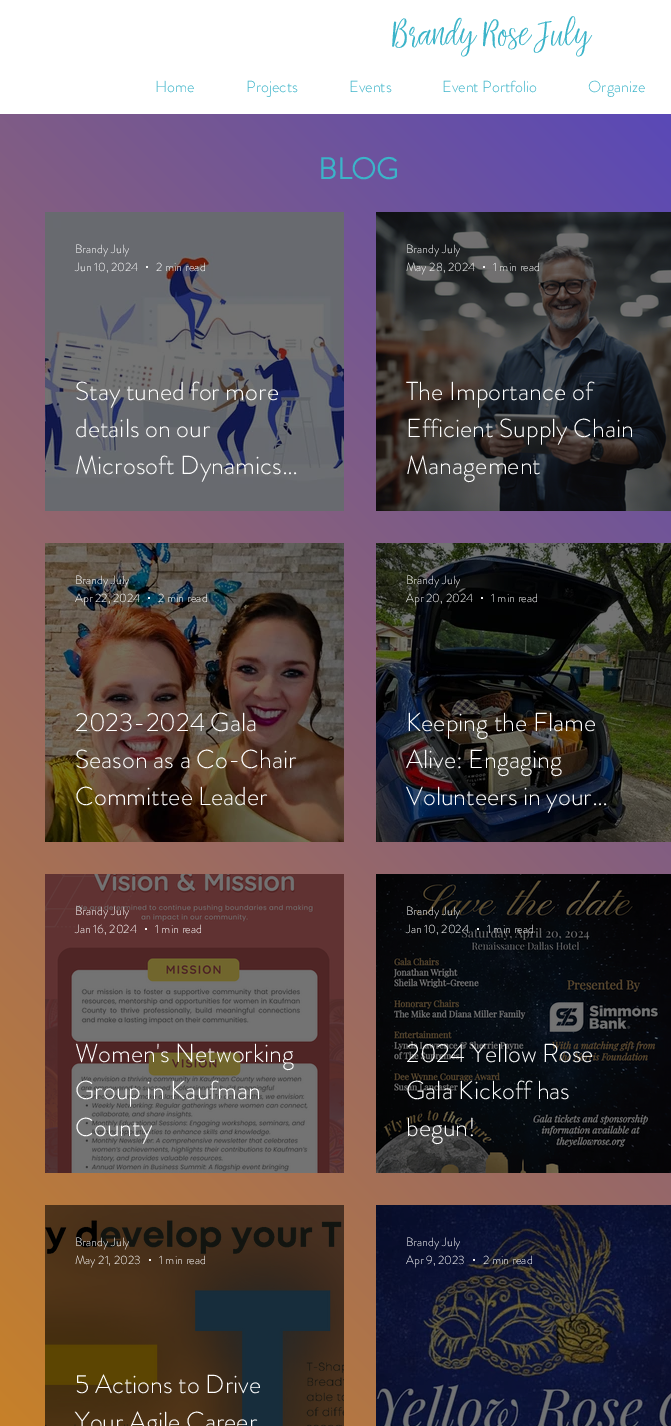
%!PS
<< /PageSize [671 1426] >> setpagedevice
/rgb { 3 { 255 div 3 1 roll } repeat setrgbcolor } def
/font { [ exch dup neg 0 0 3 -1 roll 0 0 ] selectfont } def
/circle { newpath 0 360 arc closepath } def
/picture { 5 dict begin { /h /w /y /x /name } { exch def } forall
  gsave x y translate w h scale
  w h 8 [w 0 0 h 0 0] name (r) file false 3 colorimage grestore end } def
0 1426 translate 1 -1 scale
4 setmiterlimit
255 255 255 rgb
0 0 671 1426 rectfill
gsave 0 114 moveto 671 114 lineto 671 1426 lineto 0 1426 lineto closepath clip newpath
<< /ShadingType 2 /ColorSpace /DeviceRGB /Coords [-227 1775 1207 341] /Extend [true true] /Function << /FunctionType 2 /Domain [0 1] /C0 [0.906 0.569 0] /C1 [0.286 0.251 0.804] /N 1 >> >> shfill grestore
gsave 45 1205 moveto 344 1205 lineto 344 1426 lineto 45 1426 lineto closepath clip newpath
<< /ShadingType 2 /ColorSpace /DeviceRGB /Coords [-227 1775 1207 341] /Extend [true true] /Function << /FunctionType 2 /Domain [0 1] /C0 [0.408 0.255 0] /C1 [0.129 0.114 0.361] /N 1 >> >> shfill grestore
(img/1.rgb) 45 212 299 299 picture
147 267 1 circle fill
(img/2.rgb) 376 212 295 299 picture
484 267 1 circle fill
(img/3.rgb) 45 543 299 299 picture
149 598 1 circle fill
(img/4.rgb) 376 543 295 299 picture
482 598 1 circle fill
(img/5.rgb) 45 874 299 299 picture
146 929 1 circle fill
(img/6.rgb) 376 874 295 299 picture
478 929 1 circle fill
(img/7.rgb) 45 1205 299 221 picture
(img/8.rgb) 45 1220 299 206 picture
150 1260 1 circle fill
(img/9.rgb) 376 1205 295 221 picture
474 1260 1 circle fill
/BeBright-Regular 32 font
59 180 201 rgb
392 45 moveto (Brandy Rose July) show
/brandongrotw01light-Light 16 font
[
  [(Home) 155 92]
  [(Projects) 246 92]
  [(Events) 349 92]
  [(Event Portfolio) 442 92]
  [(Organize) 588 92]
] { aload pop moveto show } forall
/brandongrotw01light-Bold 30 font
318 179 moveto (BLOG) show
/brandongrotw01light-Light 12 font
255 255 255 rgb
[
  [(Brandy July) 75 253]
  [(Jun 10, 2024) 75 271]
  [(2 min read) 156 271]
] { aload pop moveto show } forall
/brandongrotw01light-Light 26 font
[
  [(Stay tuned for more) 75 400]
  [(details on our) 75 437]
  [(Microsoft Dynamics…) 75 474]
] { aload pop moveto show } forall
/brandongrotw01light-Light 12 font
[
  [(Brandy July) 406 253]
  [(May 28, 2024) 406 271]
  [(1 min read) 493 271]
] { aload pop moveto show } forall
/brandongrotw01light-Light 26 font
[
  [(The Importance of) 406 400]
  [(Efficient Supply Chain) 406 437]
  [(Management) 406 474]
] { aload pop moveto show } forall
/brandongrotw01light-Light 12 font
[
  [(Brandy July) 75 584]
  [(Apr 22, 2024) 75 602]
  [(2 min read) 158 602]
] { aload pop moveto show } forall
/brandongrotw01light-Light 26 font
[
  [(2023-2024 Gala) 75 731]
  [(Season as a Co-Chair) 75 768]
  [(Committee Leader) 75 805]
] { aload pop moveto show } forall
/brandongrotw01light-Light 12 font
[
  [(Brandy July) 406 584]
  [(Apr 20, 2024) 406 602]
  [(1 min read) 491 602]
] { aload pop moveto show } forall
/brandongrotw01light-Light 26 font
[
  [(Keeping the Flame) 406 731]
  [(Alive: Engaging) 406 768]
  [(Volunteers in your…) 406 805]
] { aload pop moveto show } forall
/brandongrotw01light-Light 12 font
[
  [(Brandy July) 75 915]
  [(Jan 16, 2024) 75 933]
  [(1 min read) 155 933]
] { aload pop moveto show } forall
/brandongrotw01light-Light 26 font
[
  [(Women's Networking) 75 1062]
  [(Group in Kaufman) 75 1099]
  [(County) 75 1136]
] { aload pop moveto show } forall
/brandongrotw01light-Light 12 font
[
  [(Brandy July) 406 915]
  [(Jan 10, 2024) 406 933]
  [(1 min read) 487 933]
] { aload pop moveto show } forall
/brandongrotw01light-Light 26 font
[
  [(2024 Yellow Rose) 406 1062]
  [(Gala Kickoff has) 406 1099]
  [(begun!) 406 1136]
] { aload pop moveto show } forall
/brandongrotw01light-Light 12 font
[
  [(Brandy July) 75 1246]
  [(May 21, 2023) 75 1264]
  [(1 min read) 159 1264]
] { aload pop moveto show } forall
/brandongrotw01light-Light 26 font
75 1393 moveto (5 Actions to Drive) show
75 1430 moveto (Your Agile Career) show
/brandongrotw01light-Light 12 font
[
  [(Brandy July) 406 1246]
  [(Apr 9, 2023) 406 1264]
  [(2 min read) 483 1264]
] { aload pop moveto show } forall
showpage
